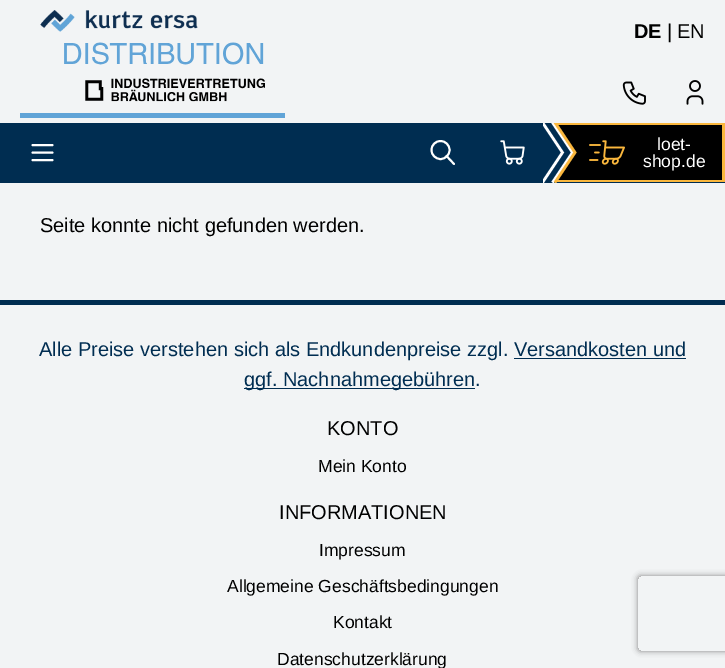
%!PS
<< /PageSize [725 668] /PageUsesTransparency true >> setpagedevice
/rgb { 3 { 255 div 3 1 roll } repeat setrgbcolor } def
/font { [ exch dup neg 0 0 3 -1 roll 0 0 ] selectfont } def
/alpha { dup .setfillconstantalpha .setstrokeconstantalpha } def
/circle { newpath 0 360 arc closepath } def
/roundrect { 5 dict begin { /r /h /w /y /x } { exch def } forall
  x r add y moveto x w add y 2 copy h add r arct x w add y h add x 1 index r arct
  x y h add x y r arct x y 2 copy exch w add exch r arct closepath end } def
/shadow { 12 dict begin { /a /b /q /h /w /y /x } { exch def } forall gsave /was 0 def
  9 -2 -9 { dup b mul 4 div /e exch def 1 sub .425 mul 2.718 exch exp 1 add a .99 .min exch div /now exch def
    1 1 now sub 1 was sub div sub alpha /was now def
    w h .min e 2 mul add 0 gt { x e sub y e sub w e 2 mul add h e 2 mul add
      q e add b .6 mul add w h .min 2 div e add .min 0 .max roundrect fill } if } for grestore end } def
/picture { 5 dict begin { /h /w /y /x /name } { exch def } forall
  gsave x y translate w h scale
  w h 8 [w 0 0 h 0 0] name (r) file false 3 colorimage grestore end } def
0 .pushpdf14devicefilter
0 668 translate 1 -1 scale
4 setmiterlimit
242 244 245 rgb
0 0 725 668 rectfill
97 164 215 rgb
20 113 265 5 rectfill
(img/1.rgb) 40 10 225 92 picture
(img/2.rgb) 622 81 24 24 picture
(img/3.rgb) 686 80 18 25 picture
0 45 81 rgb
0 123 725 60 rectfill
255 255 255 rgb
1.9 setlinewidth
1 setlinecap
1 setlinejoin
32.5 145 moveto 52.5 145 lineto 32.5 152.5 moveto 52.5 152.5 lineto 32.5 160 moveto 52.5 160 lineto stroke
0 setlinecap
0 setlinejoin
440.5 150 9 circle stroke
1 setlinecap
1 setlinejoin
454 164 moveto 446.5 156 lineto stroke
(img/4.rgb) 500 140 25 25 picture
250 183 61 rgb
543 182 moveto 563 152 lineto 543 123 lineto 725 123 lineto 725 182 lineto closepath fill
0 0 0 rgb
548 179 moveto 565 152 lineto 548 125 lineto 722 125 lineto 722 180 lineto 548 180 lineto closepath fill
gsave
543 123 60 60 rectclip
0 45 81 rgb
542 122 moveto 562 152 lineto 542 182 lineto 552 182 lineto 572 152 lineto 552 122 lineto 542 122 lineto fill
255 255 255 rgb
2.5 setlinewidth
0 setlinecap
0 setlinejoin
552.5 122.5 moveto 572.5 152.5 lineto 552.5 182.5 lineto 542.5 122.5 moveto 562.5 152.5 lineto 542.5 182.5 lineto stroke
250 183 61 rgb
555 122.5 moveto 575 152.5 lineto 555 182.5 lineto stroke
grestore
(img/5.rgb) 589 140 36 25 picture
[
  [0 300 725 5 0 45 81]
  [514 358 172 1 0 45 81]
  [244 388 231 1 0 45 81]
] { aload pop rgb rectfill } forall
gsave
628 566 moveto 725 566 lineto 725 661 lineto 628 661 lineto closepath 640.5 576 moveto 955.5 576 lineto 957 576 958 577 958 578.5 curveto 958 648.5 lineto 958 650 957 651 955.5 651 curveto 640.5 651 lineto 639 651 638 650 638 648.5 curveto 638 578.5 lineto 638 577 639 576 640.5 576 curveto closepath eoclip newpath
128 128 128 rgb
638 576 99 75 2.5 3 1 shadow
grestore
/LiberationSans-Bold 20 font
0 0 0 rgb
634 38 moveto (DE) show
/LiberationSans-Regular 20 font
667 38 moveto (|) show
677 38 moveto (EN) show
/LiberationSans-Regular 17.5 font
255 255 255 rgb
657 150 moveto (loet-) show
643 167 moveto (shop.de) show
/LiberationSans-Regular 20 font
0 0 0 rgb
40 232 moveto (Seite konnte nicht gefunden werden.) show
0 45 81 rgb
39 356 moveto (Alle Preise verstehen sich als Endkundenpreise zzgl. Versandkosten und) show
244 386 moveto (ggf. Nachnahmegebühren.) show
0 0 0 rgb
327 435 moveto (KONTO) show
/LiberationSans-Regular 17.5 font
318 472 moveto (Mein Konto) show
/LiberationSans-Regular 20 font
279 519 moveto (INFORMATIONEN) show
/LiberationSans-Regular 17.5 font
[
  [(Impressum) 319 556]
  [(Allgemeine Geschäftsbedingungen) 227 592]
  [(Kontakt) 333 628]
  [(Datenschutzerklärung) 277 665]
] { aload pop moveto show } forall
.poppdf14devicefilter showpage
